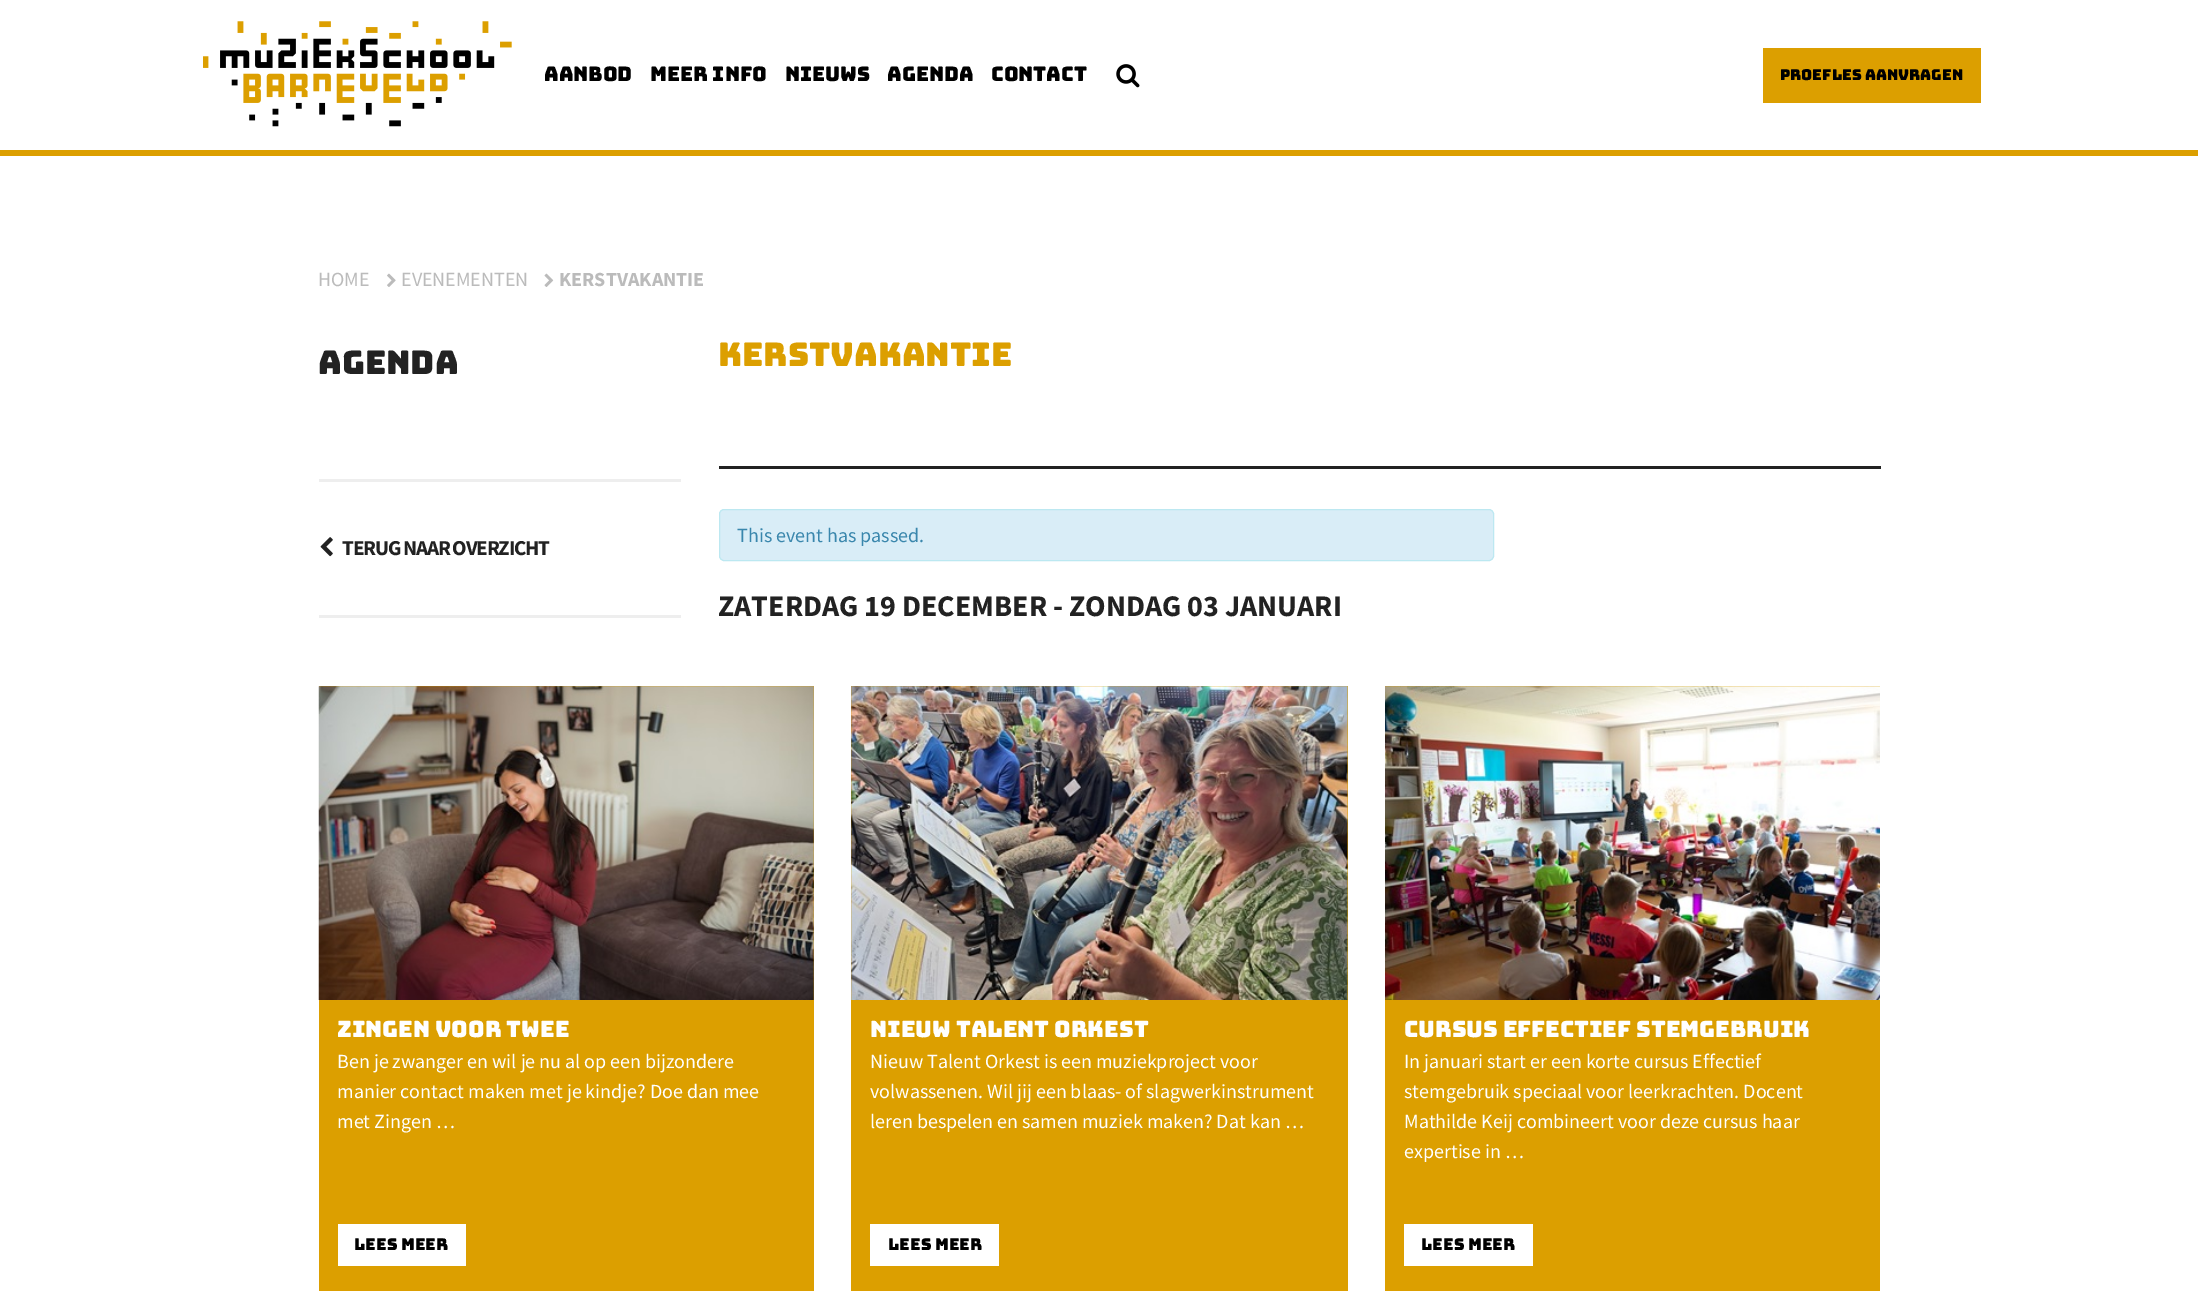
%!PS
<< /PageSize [2198 1305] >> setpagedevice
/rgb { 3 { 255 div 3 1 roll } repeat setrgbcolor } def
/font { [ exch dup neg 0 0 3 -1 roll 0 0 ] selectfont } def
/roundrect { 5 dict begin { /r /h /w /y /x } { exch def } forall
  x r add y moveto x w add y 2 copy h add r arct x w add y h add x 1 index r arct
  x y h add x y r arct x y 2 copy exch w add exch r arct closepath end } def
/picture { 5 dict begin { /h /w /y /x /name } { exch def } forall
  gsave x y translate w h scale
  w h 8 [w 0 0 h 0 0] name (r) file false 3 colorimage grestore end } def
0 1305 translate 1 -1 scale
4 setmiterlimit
255 255 255 rgb
0 0 2198 1305 rectfill
220 159 0 rgb
0 150 2198 6 rectfill
(img/1.rgb) 203 21 309 106 picture
(img/2.rgb) 1116 64 24 24 picture
1763 48 218 55 rectfill
(img/3.rgb) 387 273 9 14 picture
(img/4.rgb) 544 273 10 14 picture
238 238 238 rgb
319 479 362 3 rectfill
319 615 362 3 rectfill
(img/5.rgb) 320 537 13 20 picture
34 34 34 rgb
719 466 1162 3 rectfill
217 237 247 rgb
719.5 509.5 774 51 4.5 roundrect gsave fill grestore
188 232 241 rgb
stroke
220 159 0 rgb
319 686 495 605 rectfill
(img/6.rgb) 318 686 496 314 picture
255 255 255 rgb
338 1224 128 42 rectfill
220 159 0 rgb
851 686 497 605 rectfill
(img/7.rgb) 851 686 497 314 picture
255 255 255 rgb
870 1224 129 42 rectfill
220 159 0 rgb
1385 686 495 605 rectfill
(img/8.rgb) 1385 686 495 314 picture
255 255 255 rgb
1404 1224 129 42 rectfill
/Bungee-Regular 20 font
0 0 0 rgb
[
  [(AANBOD) 544 81]
  [(MEER INFO) 650 81]
  [(NIEUWS) 785 81]
  [(AGENDA) 887 81]
  [(CONTACT) 991 81]
] { aload pop moveto show } forall
/Bungee-Regular 15 font
1780 80 moveto (PROEFLES AANVRAGEN) show
/SourceSansPro-Regular 20 font
187 187 187 rgb
318 286 moveto (HOME) show
401 286 moveto (EVENEMENTEN) show
/SourceSansPro-Bold 20 font
559 286 moveto (KERSTVAKANTIE) show
/Bungee-Regular 32.5 font
34 34 34 rgb
318 374 moveto (Agenda) show
/SourceSansPro-Bold 21.25 font
342 555 moveto -1.25 0 (TERUG NAAR OVERZICHT) ashow
/Bungee-Regular 32.5 font
220 159 0 rgb
718 366 moveto (KERSTVAKANTIE) show
/SourceSansPro-Regular 20 font
58 135 173 rgb
737 542 moveto (This event has passed.) show
/SourceSansPro-Bold 30 font
34 34 34 rgb
[
  [(ZATERDAG) 718 616]
  [(19 DECEMBER - ZONDAG) 864 616]
  [(03 JANUARI) 1187 616]
] { aload pop moveto show } forall
/Bungee-Regular 22.5 font
255 255 255 rgb
337 1037 moveto (Zingen voor twee) show
/SourceSansPro-Regular 20 font
[
  [(Ben je zwanger en wil je nu al op een bijzondere) 337 1068]
  [(manier contact maken met je kindje? Doe dan mee) 337 1098]
  [(met Zingen …) 337 1128]
] { aload pop moveto show } forall
/Bungee-Regular 16.25 font
0 0 0 rgb
354 1250 moveto (LEES MEER) show
/Bungee-Regular 22.5 font
255 255 255 rgb
870 1037 moveto (Nieuw Talent Orkest) show
/SourceSansPro-Regular 20 font
[
  [(Nieuw Talent Orkest is een muziekproject voor) 870 1068]
  [(volwassenen. Wil jij een blaas- of slagwerkinstrument) 870 1098]
  [(leren bespelen en samen muziek maken? Dat kan …) 870 1128]
] { aload pop moveto show } forall
/Bungee-Regular 16.25 font
0 0 0 rgb
888 1250 moveto (LEES MEER) show
/Bungee-Regular 22.5 font
255 255 255 rgb
1404 1037 moveto (Cursus Effectief stemgebruik) show
/SourceSansPro-Regular 20 font
[
  [(In januari start er een korte cursus Effectief) 1404 1068]
  [(stemgebruik speciaal voor leerkrachten. Docent) 1404 1098]
  [(Mathilde Keij combineert voor deze cursus haar) 1404 1128]
  [(expertise in …) 1404 1158]
] { aload pop moveto show } forall
/Bungee-Regular 16.25 font
0 0 0 rgb
1421 1250 moveto (LEES MEER) show
showpage
